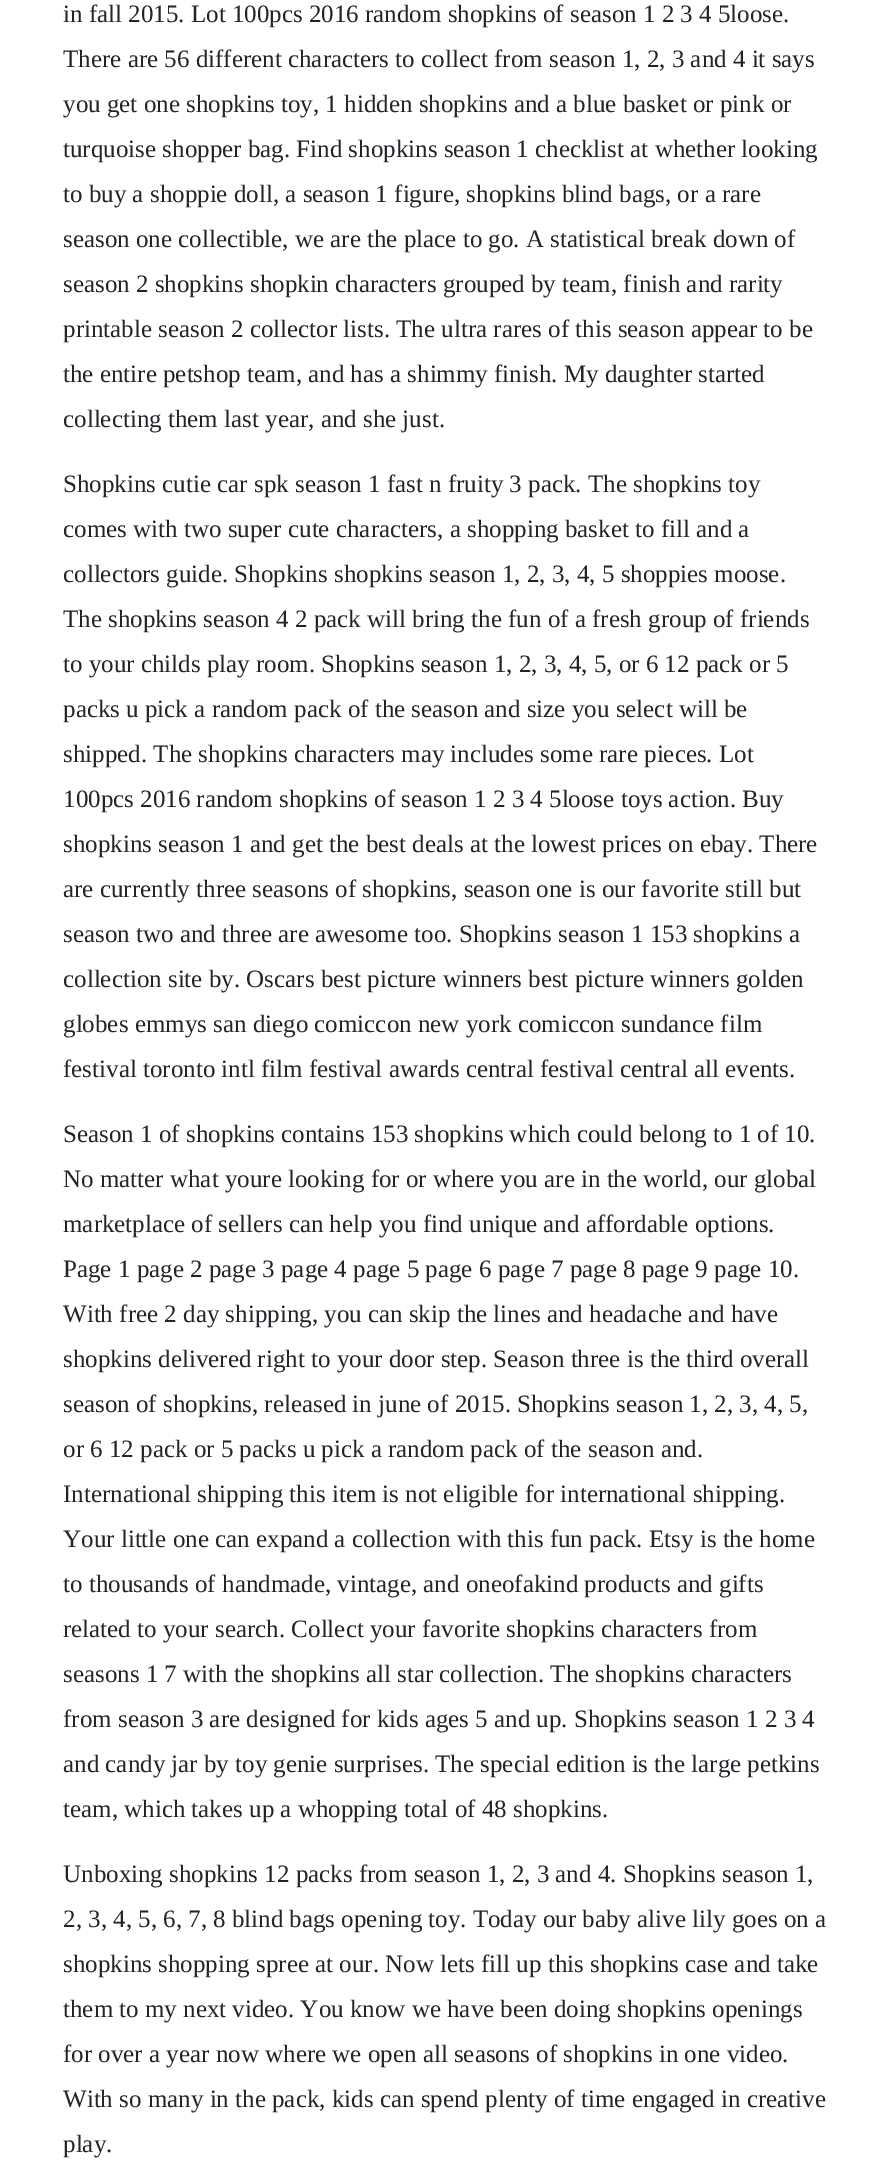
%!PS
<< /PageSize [892 2172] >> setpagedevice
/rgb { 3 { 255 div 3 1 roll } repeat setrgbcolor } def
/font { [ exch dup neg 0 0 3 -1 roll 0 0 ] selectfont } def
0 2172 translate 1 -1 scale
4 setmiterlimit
255 255 255 rgb
0 0 892 2172 rectfill
/LiberationSerif-Regular 25 font
33 37 41 rgb
[
  [(in fall 2015. Lot 100pcs 2016 random shopkins of season 1 2 3 4 5loose.) 63 22]
  [(There are 56 different characters to collect from season 1, 2, 3 and 4 it says) 63 67]
  [(you get one shopkins toy, 1 hidden shopkins and a blue basket or pink or) 63 112]
  [(turquoise shopper bag. Find shopkins season 1 checklist at whether looking) 63 157]
  [(to buy a shoppie doll, a season 1 figure, shopkins blind bags, or a rare) 63 202]
  [(season one collectible, we are the place to go. A statistical break down of) 63 247]
  [(season 2 shopkins shopkin characters grouped by team, finish and rarity) 63 292]
  [(printable season 2 collector lists. The ultra rares of this season appear to be) 63 337]
  [(the entire petshop team, and has a shimmy finish. My daughter started) 63 382]
  [(collecting them last year, and she just.) 63 427]
  [(Shopkins cutie car spk season 1 fast n fruity 3 pack. The shopkins toy) 63 492]
  [(comes with two super cute characters, a shopping basket to fill and a) 63 537]
  [(collectors guide. Shopkins shopkins season 1, 2, 3, 4, 5 shoppies moose.) 63 582]
  [(The shopkins season 4 2 pack will bring the fun of a fresh group of friends) 63 627]
  [(to your childs play room. Shopkins season 1, 2, 3, 4, 5, or 6 12 pack or 5) 63 672]
  [(packs u pick a random pack of the season and size you select will be) 63 717]
  [(shipped. The shopkins characters may includes some rare pieces. Lot) 63 762]
  [(100pcs 2016 random shopkins of season 1 2 3 4 5loose toys action. Buy) 63 807]
  [(shopkins season 1 and get the best deals at the lowest prices on ebay. There) 63 852]
  [(are currently three seasons of shopkins, season one is our favorite still but) 63 897]
  [(season two and three are awesome too. Shopkins season 1 153 shopkins a) 63 942]
  [(collection site by. Oscars best picture winners best picture winners golden) 63 987]
  [(globes emmys san diego comiccon new york comiccon sundance film) 63 1032]
  [(festival toronto intl film festival awards central festival central all events.) 63 1077]
  [(Season 1 of shopkins contains 153 shopkins which could belong to 1 of 10.) 63 1142]
  [(No matter what youre looking for or where you are in the world, our global) 63 1187]
  [(marketplace of sellers can help you find unique and affordable options.) 63 1232]
  [(Page 1 page 2 page 3 page 4 page 5 page 6 page 7 page 8 page 9 page 10.) 63 1277]
  [(With free 2 day shipping, you can skip the lines and headache and have) 63 1322]
  [(shopkins delivered right to your door step. Season three is the third overall) 63 1367]
  [(season of shopkins, released in june of 2015. Shopkins season 1, 2, 3, 4, 5,) 63 1412]
  [(or 6 12 pack or 5 packs u pick a random pack of the season and.) 63 1457]
  [(International shipping this item is not eligible for international shipping.) 63 1502]
  [(Your little one can expand a collection with this fun pack. Etsy is the home) 63 1547]
  [(to thousands of handmade, vintage, and oneofakind products and gifts) 63 1592]
  [(related to your search. Collect your favorite shopkins characters from) 63 1637]
  [(seasons 1 7 with the shopkins all star collection. The shopkins characters) 63 1682]
  [(from season 3 are designed for kids ages 5 and up. Shopkins season 1 2 3 4) 63 1727]
  [(and candy jar by toy genie surprises. The special edition is the large petkins) 63 1772]
  [(team, which takes up a whopping total of 48 shopkins.) 63 1817]
  [(Unboxing shopkins 12 packs from season 1, 2, 3 and 4. Shopkins season 1,) 63 1882]
  [(2, 3, 4, 5, 6, 7, 8 blind bags opening toy. Today our baby alive lily goes on a) 63 1927]
  [(shopkins shopping spree at our. Now lets fill up this shopkins case and take) 63 1972]
  [(them to my next video. You know we have been doing shopkins openings) 63 2017]
  [(for over a year now where we open all seasons of shopkins in one video.) 63 2062]
  [(With so many in the pack, kids can spend plenty of time engaged in creative) 63 2107]
  [(play.) 63 2152]
] { aload pop moveto show } forall
showpage
